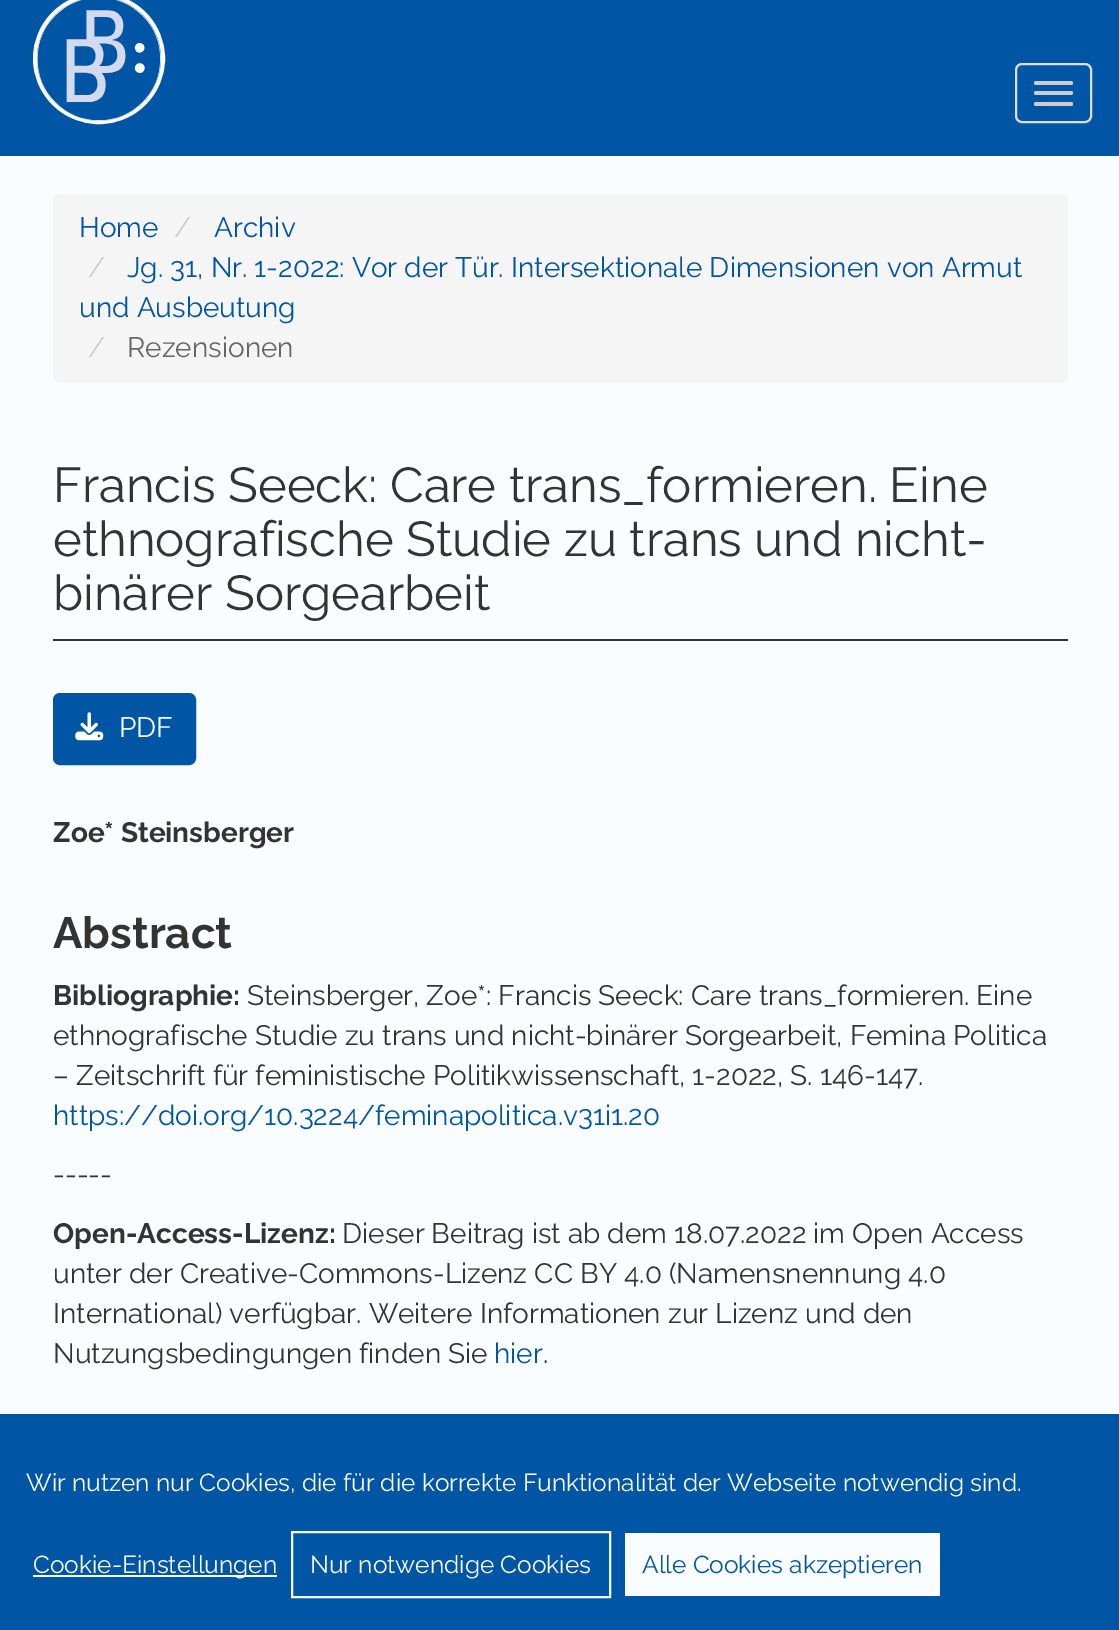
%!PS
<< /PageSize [1119 1630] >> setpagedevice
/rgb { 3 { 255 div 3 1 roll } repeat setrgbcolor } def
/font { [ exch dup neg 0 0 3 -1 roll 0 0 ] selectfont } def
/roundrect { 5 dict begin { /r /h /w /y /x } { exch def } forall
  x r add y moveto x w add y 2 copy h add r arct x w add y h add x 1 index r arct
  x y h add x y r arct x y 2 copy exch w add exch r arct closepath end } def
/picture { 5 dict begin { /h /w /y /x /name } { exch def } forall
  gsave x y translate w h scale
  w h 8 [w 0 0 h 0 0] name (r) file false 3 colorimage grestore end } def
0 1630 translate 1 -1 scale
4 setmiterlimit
250 253 255 rgb
0 0 1119 1630 rectfill
0 86 164 rgb
0 0 1119 156 rectfill
255 255 255 rgb
4 setlinewidth
35 -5 128 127 63.5 roundrect stroke
(img/1.rgb) 37 0 124 121 picture
221 221 221 rgb
2 setlinewidth
1016 64 75 58 6 roundrect stroke
204 204 204 rgb
1034 81 39 4 2 roundrect fill
1034 91 39 4 2 roundrect fill
1034 102 39 4 2 roundrect fill
245 245 245 rgb
53 194 1015 189 7 roundrect fill
51 51 51 rgb
53 639 1015 2 rectfill
0 86 164 rgb
54 694 141 70 6 roundrect gsave fill grestore
stroke
(img/2.rgb) 75 712 29 29 picture
0 1414 1119 216 rectfill
250 253 255 rgb
33 1575 244 2 rectfill
292 1532 318 65 rectstroke
625 1533 315 63 rectfill
/Raleway-Regular 28 font
0 86 164 rgb
79 237 moveto (Home) show
204 204 204 rgb
174 237 moveto (/) show
0 86 164 rgb
214 237 moveto (Archiv) show
204 204 204 rgb
88 277 moveto (/) show
0 86 164 rgb
127 277 moveto (Jg. 31, Nr. 1-2022: Vor der Tür. Intersektionale Dimensionen von Armut) show
79 317 moveto (und Ausbeutung) show
204 204 204 rgb
88 357 moveto (/) show
102 102 102 rgb
127 357 moveto (Rezensionen) show
/Raleway-Regular 49 font
51 51 51 rgb
[
  [(Francis Seeck: Care trans_formieren. Eine) 53 502]
  [(ethnografische Studie zu trans und nicht-) 53 556]
  [(binärer Sorgearbeit) 53 610]
] { aload pop moveto show } forall
/Raleway-Regular 28 font
255 255 255 rgb
119 737 moveto (PDF) show
/Raleway-Bold 28 font
51 51 51 rgb
53 842 moveto (Zoe* Steinsberger) show
/Raleway-Bold 43.75 font
53 948 moveto (Abstract) show
/Raleway-Bold 28 font
53 1005 moveto (Bibliographie:) show
/Raleway-Regular 28 font
[
  [(Steinsberger, Zoe*: Francis Seeck: Care trans_formieren. Eine) 247 1005]
  [(ethnografische Studie zu trans und nicht-binärer Sorgearbeit, Femina Politica) 53 1045]
  [(– Zeitschrift für feministische Politikwissenschaft, 1-2022, S. 146-147.) 53 1085]
] { aload pop moveto show } forall
0 86 164 rgb
53 1125 moveto (https://doi.org/10.3224/feminapolitica.v31i1.20) show
51 51 51 rgb
53 1184 moveto (-----) show
/Raleway-Bold 28 font
53 1243 moveto (Open-Access-Lizenz:) show
/Raleway-Regular 28 font
[
  [(Dieser Beitrag ist ab dem 18.07.2022 im Open Access) 342 1243]
  [(unter der Creative-Commons-Lizenz CC BY 4.0 \(Namensnennung 4.0) 53 1283]
  [(International\) verfügbar. Weitere Informationen zur Lizenz und den) 53 1323]
  [(Nutzungsbedingungen finden Sie) 53 1363]
] { aload pop moveto show } forall
0 86 164 rgb
494 1363 moveto (hier) show
51 51 51 rgb
543 1363 moveto (.) show
/Raleway-Regular 24.5 font
255 255 255 rgb
[
  [(Wir nutzen nur Cookies, die für die korrekte Funktionalität der Webseite notwendig sind.) 26 1491]
  [(Cookie-Einstellungen) 33 1573]
  [(Nur notwendige Cookies) 310 1573]
] { aload pop moveto show } forall
0 86 164 rgb
642 1573 moveto (Alle Cookies akzeptieren) show
showpage
